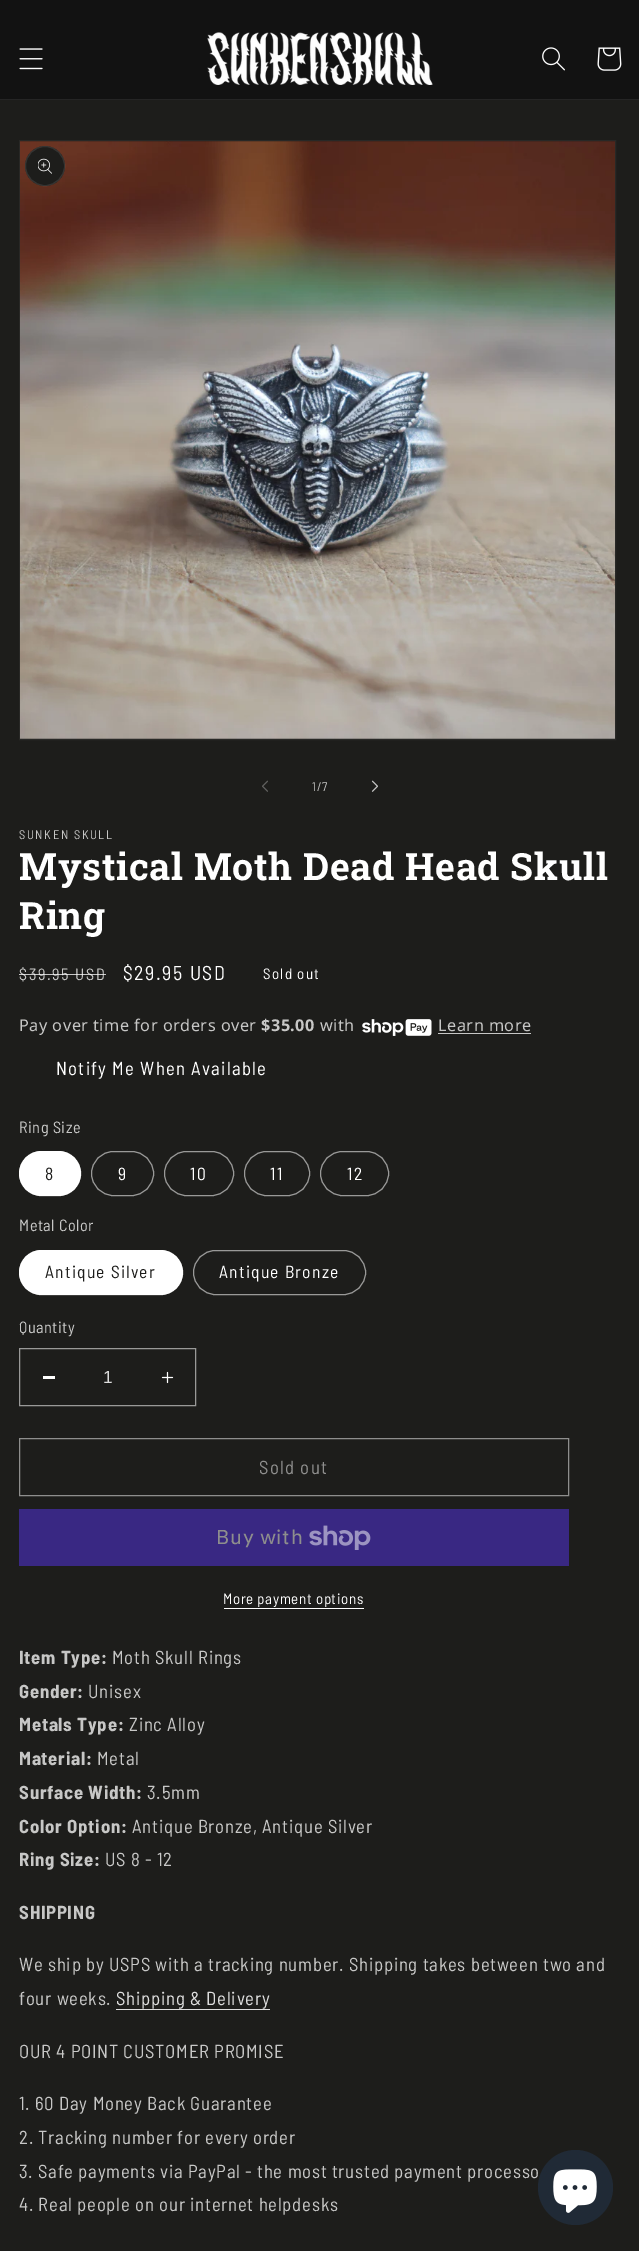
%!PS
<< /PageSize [639 2251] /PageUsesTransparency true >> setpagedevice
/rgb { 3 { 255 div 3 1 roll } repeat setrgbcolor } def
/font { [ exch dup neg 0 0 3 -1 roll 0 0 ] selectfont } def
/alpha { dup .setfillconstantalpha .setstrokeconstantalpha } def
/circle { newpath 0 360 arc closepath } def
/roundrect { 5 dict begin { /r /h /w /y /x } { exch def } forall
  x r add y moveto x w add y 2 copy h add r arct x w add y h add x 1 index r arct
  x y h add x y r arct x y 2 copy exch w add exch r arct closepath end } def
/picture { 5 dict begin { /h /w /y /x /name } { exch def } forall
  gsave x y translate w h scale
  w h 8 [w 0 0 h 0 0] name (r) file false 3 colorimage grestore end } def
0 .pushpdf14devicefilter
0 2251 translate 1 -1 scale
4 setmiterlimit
29 29 27 rgb
0 0 639 2251 rectfill
18 18 18 rgb
0 0 639 99 rectfill
37 37 37 rgb
0 99 639 1 rectfill
(img/1.rgb) 19 48 24 22 picture
(img/2.rgb) 207 32 226 53 picture
(img/3.rgb) 542 47 23 24 picture
(img/4.rgb) 597 47 25 24 picture
40 40 38 rgb
19.5 140.5 596 599 rectstroke
(img/5.rgb) 20 141 595 598 picture
29 29 27 rgb
45 166 20 circle fill
0.1 alpha
255 255 255 rgb
45 166 19.5 circle stroke
1 alpha
(img/6.rgb) 38 158 14 16 picture
(img/7.rgb) 262 780 6 12 picture
(img/8.rgb) 371 780 7 12 picture
(img/9.rgb) 362 1019 70 17 picture
199 199 198 rgb
438 1033 93 1 rectfill
255 255 255 rgb
19 1151 62 45 22.5 roundrect fill
0.55 alpha
19.5 1151.5 61 44 22 roundrect stroke
1 alpha
153 153 152 rgb
91.5 1151.5 62 44 22 roundrect stroke
164.5 1151.5 69 44 22 roundrect stroke
244.5 1151.5 65 44 22 roundrect stroke
320.5 1151.5 68 44 22 roundrect stroke
255 255 255 rgb
19 1250 164 45 22.5 roundrect fill
0.55 alpha
19.5 1250.5 163 44 22 roundrect stroke
1 alpha
153 153 152 rgb
193.5 1250.5 172 44 22 roundrect stroke
255 255 255 rgb
43 1376 12 3 rectfill
(img/10.rgb) 161 1371 13 13 picture
153 153 152 rgb
19.5 1348.5 176 57 rectstroke
142 142 141 rgb
19.5 1438.5 549 57 rectstroke
57 40 131 rgb
19 1509 550 57 rectfill
(img/11.rgb) 309 1525 62 25 picture
255 255 255 rgb
224 1608 140 1 rectfill
221 221 221 rgb
116 2009 154 1 rectfill
/BarlowSemiCondensed-Regular 12.5 font
199 199 198 rgb
312 791 moveto 1 0 (1/7) ashow
19 839 moveto 1.6 0 (SUNKEN SKULL) ashow
/RobotoSlab-Bold 37.5 font
255 255 255 rgb
19 880 moveto 0.75 0 (Mystical Moth Dead Head Skull) ashow
19 929 moveto 0.75 0 (Ring) ashow
/BarlowSemiCondensed-Regular 16.25 font
199 199 198 rgb
19 980 moveto 1.6 0 ($39.95 USD) ashow
0.75 alpha
255 255 255 rgb
19 974 87 1 rectfill
/BarlowSemiCondensed-Regular 20 font
1 alpha
123 980 moveto 1.6 0 ($29.95 USD) ashow
/BarlowSemiCondensed-Regular 15 font
263 979 moveto 1.25 0 (Sold out) ashow
/NotoSans-Regular 16.25 font
199 199 198 rgb
19 1031 moveto 0.5 0 (Pay over time for orders over) ashow
/NotoSans-Bold 16.25 font
261 1031 moveto 0.5 0 ($35.00) ashow
/NotoSans-Regular 16.25 font
320 1031 moveto 0.5 0 (with) ashow
438 1031 moveto 0.5 0 (Learn more) ashow
/BarlowSemiCondensed-Regular 18.75 font
255 255 255 rgb
56 1075 moveto 1.25 0 (Notify Me When Available) ashow
/BarlowSemiCondensed-Regular 16.25 font
199 199 198 rgb
19 1133 moveto 0.5 0 (Ring Size) ashow
/BarlowSemiCondensed-Regular 17.5 font
29 29 27 rgb
45 1180 moveto 1.25 0 (8) ashow
255 255 255 rgb
118 1180 moveto 1.25 0 (9) ashow
190 1180 moveto 1.25 0 (10) ashow
270 1180 moveto 1.25 0 (11) ashow
347 1180 moveto 1.25 0 (12) ashow
/BarlowSemiCondensed-Regular 16.25 font
199 199 198 rgb
19 1231 moveto 0.5 0 (Metal Color) ashow
/BarlowSemiCondensed-Regular 17.5 font
29 29 27 rgb
45 1278 moveto 1.25 0 (Antique Silver) ashow
255 255 255 rgb
219 1278 moveto 1.25 0 (Antique Bronze) ashow
/BarlowSemiCondensed-Regular 16.25 font
199 199 198 rgb
19 1333 moveto 0.5 0 (Quantity) ashow
/LiberationSans-Regular 17.5 font
221 221 221 rgb
103 1383 moveto (1) show
/BarlowSemiCondensed-Regular 18.75 font
142 142 141 rgb
259 1474 moveto 1.25 0 (Sold out) ashow
/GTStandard-Regular 20 font
216 1544 moveto 0.75 0 (Buy with) ashow
/BarlowSemiCondensed-Regular 15 font
255 255 255 rgb
223 1604 moveto 0.6 0 (More payment options) ashow
/BarlowSemiCondensed-Bold 18.75 font
199 199 198 rgb
19 1664 moveto 0.75 0 (Item Type:) ashow
/BarlowSemiCondensed-Regular 18.75 font
112 1664 moveto 0.75 0 (Moth Skull Rings) ashow
/BarlowSemiCondensed-Bold 18.75 font
19 1698 moveto 0.75 0 (Gender:) ashow
/BarlowSemiCondensed-Regular 18.75 font
88 1698 moveto 0.75 0 (Unisex) ashow
/BarlowSemiCondensed-Bold 18.75 font
19 1731 moveto 0.75 0 (Metals Type:) ashow
/BarlowSemiCondensed-Regular 18.75 font
129 1731 moveto 0.75 0 (Zinc Alloy) ashow
/BarlowSemiCondensed-Bold 18.75 font
19 1765 moveto 0.75 0 (Material:) ashow
/BarlowSemiCondensed-Regular 18.75 font
97 1765 moveto 0.75 0 (Metal) ashow
/BarlowSemiCondensed-Bold 18.75 font
19 1799 moveto 0.75 0 (Surface Width:) ashow
/BarlowSemiCondensed-Regular 18.75 font
147 1799 moveto 0.75 0 (3.5mm) ashow
/BarlowSemiCondensed-Bold 18.75 font
19 1833 moveto 0.75 0 (Color Option:) ashow
/BarlowSemiCondensed-Regular 18.75 font
132 1833 moveto 0.75 0 (Antique Bronze, Antique Silver) ashow
/BarlowSemiCondensed-Bold 18.75 font
19 1866 moveto 0.75 0 (Ring Size:) ashow
/BarlowSemiCondensed-Regular 18.75 font
105 1866 moveto 0.75 0 (US 8 - 12) ashow
/BarlowSemiCondensed-Bold 18.75 font
19 1919 moveto 0.75 0 (SHIPPING) ashow
/BarlowSemiCondensed-Regular 18.75 font
19 1971 moveto 0.75 0 (We ship by USPS with a tracking number. Shipping takes between two and) ashow
19 2005 moveto 0.75 0 (four weeks.) ashow
221 221 221 rgb
116 2005 moveto 0.75 0 (Shipping & Delivery) ashow
199 199 198 rgb
19 2058 moveto 0.75 0 (OUR 4 POINT CUSTOMER PROMISE) ashow
19 2110 moveto 0.75 0 (1. 60 Day Money Back Guarantee) ashow
19 2144 moveto 0.75 0 (2. Tracking number for every order) ashow
19 2178 moveto 0.75 0 (3. Safe payments via PayPal - the most trusted payment processo) ashow
19 2211 moveto 0.75 0 (4. Real people on our internet helpdesks) ashow
32 42 54 rgb
575.5 2187.5 37.5 circle fill
(img/12.rgb) 553 2169 44 44 picture
.poppdf14devicefilter showpage
